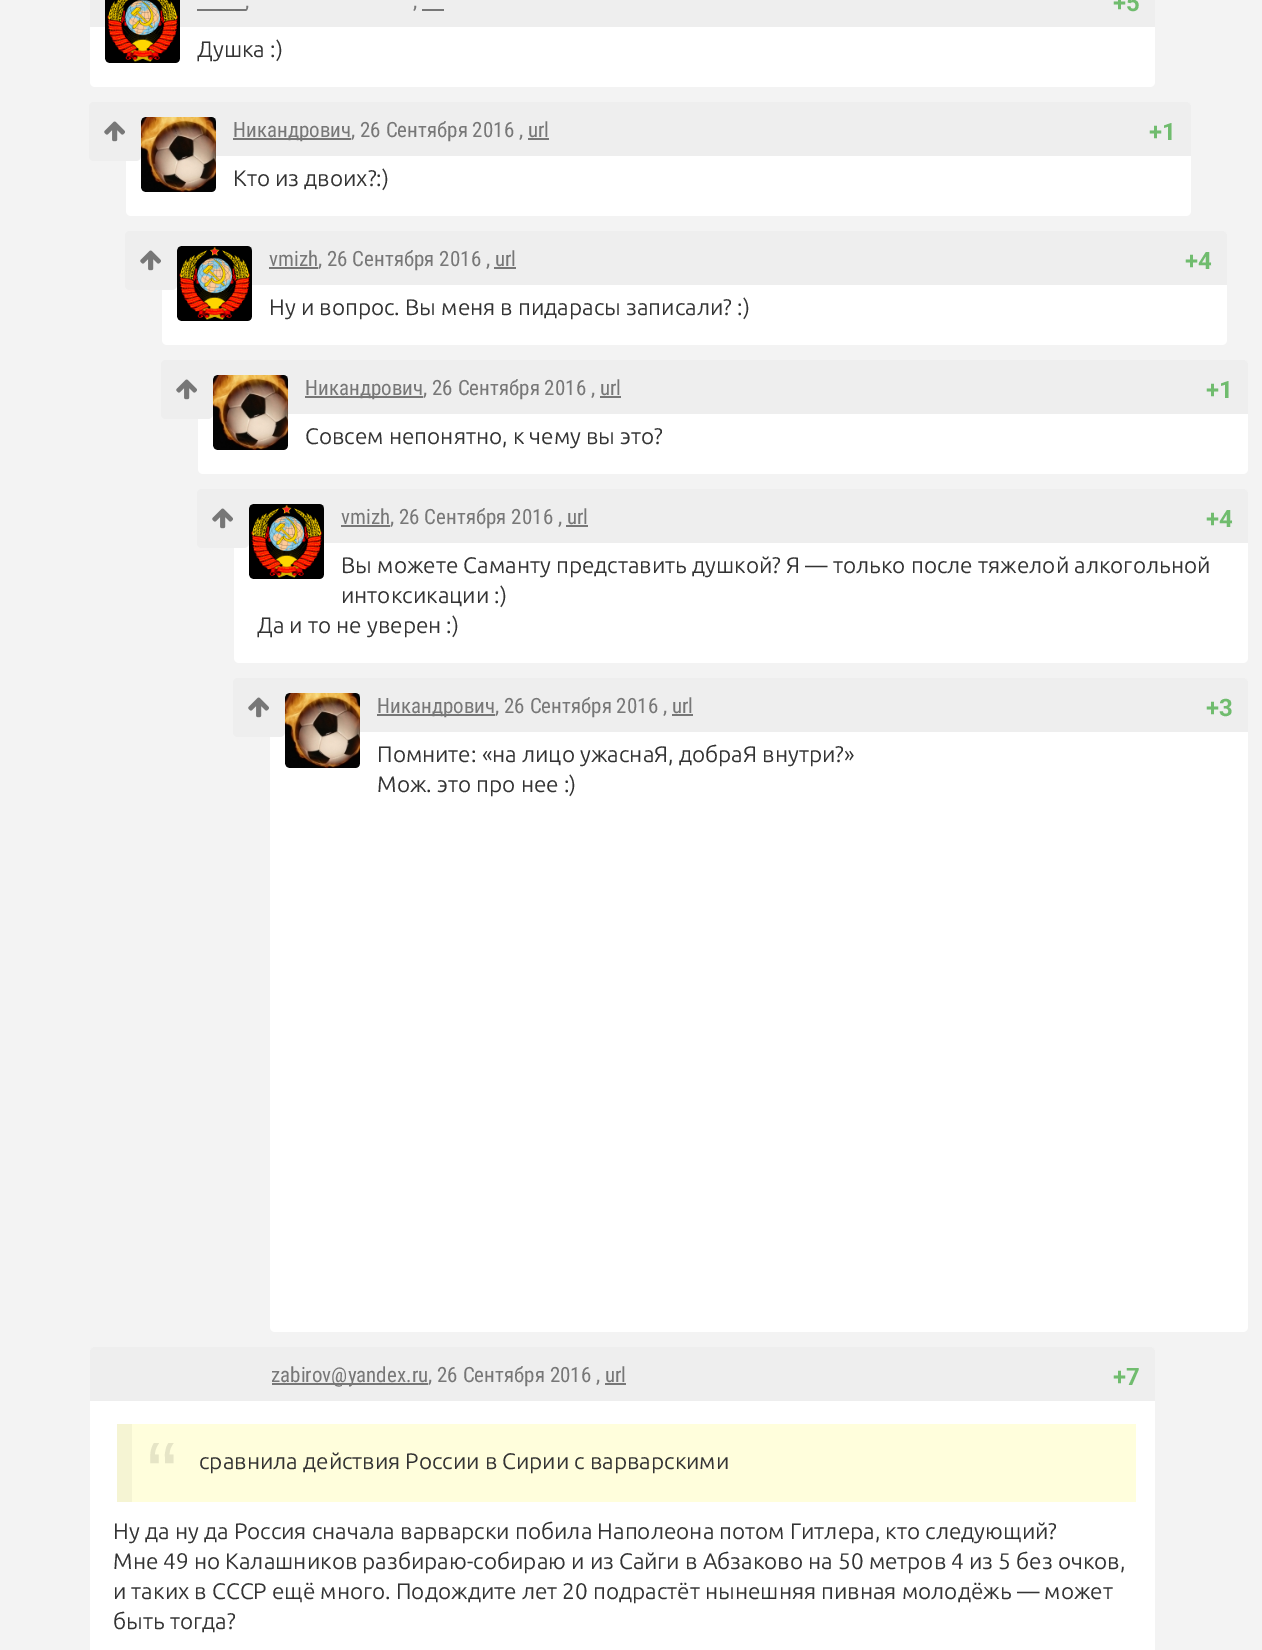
%!PS
<< /PageSize [1262 1650] >> setpagedevice
/rgb { 3 { 255 div 3 1 roll } repeat setrgbcolor } def
/font { [ exch dup neg 0 0 3 -1 roll 0 0 ] selectfont } def
/roundrect { 5 dict begin { /r /h /w /y /x } { exch def } forall
  x r add y moveto x w add y 2 copy h add r arct x w add y h add x 1 index r arct
  x y h add x y r arct x y 2 copy exch w add exch r arct closepath end } def
/picture { 5 dict begin { /h /w /y /x /name } { exch def } forall
  gsave x y translate w h scale
  w h 8 [w 0 0 h 0 0] name (r) file false 3 colorimage grestore end } def
0 1650 translate 1 -1 scale
4 setmiterlimit
243 243 243 rgb
0 0 1262 1650 rectfill
255 255 255 rgb
90 -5 1065 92 5 roundrect fill
238 238 238 rgb
90 0 1065 27 rectfill
(img/1.rgb) 105 0 75 63 picture
119 119 119 rgb
197 9 49 2 rectfill
422 9 22 2 rectfill
255 255 255 rgb
126 102 1065 114 5 roundrect fill
238 238 238 rgb
131 102 moveto 1186 102 lineto 1189 102 1191 104 1191 107 curveto 1191 156 lineto 126 156 lineto 126 107 lineto 126 104 128 102 131 102 curveto closepath fill
(img/2.rgb) 141 117 75 75 picture
89 102 52 59 5 roundrect fill
(img/3.rgb) 104 121 21 21 picture
119 119 119 rgb
233 138 118 2 rectfill
528 138 21 2 rectfill
255 255 255 rgb
162 231 1065 114 5 roundrect fill
238 238 238 rgb
167 231 moveto 1222 231 lineto 1225 231 1227 233 1227 236 curveto 1227 285 lineto 162 285 lineto 162 236 lineto 162 233 164 231 167 231 curveto closepath fill
(img/4.rgb) 177 246 75 75 picture
125 231 52 59 5 roundrect fill
(img/3.rgb) 140 250 21 21 picture
119 119 119 rgb
269 267 49 2 rectfill
494 267 22 2 rectfill
255 255 255 rgb
198 360 1050 114 5 roundrect fill
238 238 238 rgb
203 360 moveto 1243 360 lineto 1246 360 1248 362 1248 365 curveto 1248 414 lineto 198 414 lineto 198 365 lineto 198 362 200 360 203 360 curveto closepath fill
(img/5.rgb) 213 375 75 75 picture
161 360 52 59 5 roundrect fill
(img/3.rgb) 176 379 21 21 picture
119 119 119 rgb
305 396 118 2 rectfill
600 396 21 2 rectfill
255 255 255 rgb
234 489 1014 174 5 roundrect fill
238 238 238 rgb
239 489 moveto 1243 489 lineto 1246 489 1248 491 1248 494 curveto 1248 543 lineto 234 543 lineto 234 494 lineto 234 491 236 489 239 489 curveto closepath fill
(img/6.rgb) 249 504 75 75 picture
197 489 52 59 5 roundrect fill
(img/3.rgb) 212 508 21 21 picture
119 119 119 rgb
341 525 49 2 rectfill
566 525 22 2 rectfill
255 255 255 rgb
270 678 978 654 5 roundrect fill
238 238 238 rgb
275 678 moveto 1243 678 lineto 1246 678 1248 680 1248 683 curveto 1248 732 lineto 270 732 lineto 270 683 lineto 270 680 272 678 275 678 curveto closepath fill
(img/7.rgb) 285 693 75 75 picture
233 678 52 59 5 roundrect fill
(img/3.rgb) 248 697 21 21 picture
119 119 119 rgb
377 714 118 2 rectfill
672 714 21 2 rectfill
255 255 255 rgb
90 1347 1065 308 5 roundrect fill
238 238 238 rgb
95 1347 moveto 1150 1347 lineto 1153 1347 1155 1349 1155 1352 curveto 1155 1401 lineto 90 1401 lineto 90 1352 lineto 90 1349 92 1347 95 1347 curveto closepath fill
[
  [272 1383 156 2 119 119 119]
  [605 1383 21 2 119 119 119]
  [132 1424 1004 78 255 254 220]
  [117 1424 15 78 245 244 211]
] { aload pop rgb rectfill } forall
/RobotoCondensed-Regular 21 font
119 119 119 rgb
245 8 moveto (,) show
413 8 moveto (,) show
/Roboto-Bold 24 font
112 188 110 rgb
1113 11 moveto (+5) show
/Ubuntu-Regular 22.5 font
51 51 51 rgb
197 57 moveto (Душка :\)) show
/RobotoCondensed-Regular 21 font
119 119 119 rgb
233 137 moveto (Никандрович, 26 Сентября 2016 , url) show
/Roboto-Bold 24 font
112 188 110 rgb
1149 140 moveto (+1) show
/Ubuntu-Regular 22.5 font
51 51 51 rgb
233 186 moveto (Кто из двоих?:\)) show
/RobotoCondensed-Regular 21 font
119 119 119 rgb
269 266 moveto (vmizh, 26 Сентября 2016 , url) show
/Roboto-Bold 24 font
112 188 110 rgb
1185 269 moveto (+4) show
/Ubuntu-Regular 22.5 font
51 51 51 rgb
269 315 moveto (Ну и вопрос. Вы меня в пидарасы записали? :\)) show
/RobotoCondensed-Regular 21 font
119 119 119 rgb
305 395 moveto (Никандрович, 26 Сентября 2016 , url) show
/Roboto-Bold 24 font
112 188 110 rgb
1206 398 moveto (+1) show
/Ubuntu-Regular 22.5 font
51 51 51 rgb
305 444 moveto (Совсем непонятно, к чему вы это?) show
/RobotoCondensed-Regular 21 font
119 119 119 rgb
341 524 moveto (vmizh, 26 Сентября 2016 , url) show
/Roboto-Bold 24 font
112 188 110 rgb
1206 527 moveto (+4) show
/Ubuntu-Regular 22.5 font
51 51 51 rgb
[
  [(Вы можете Саманту представить душкой? Я — только после тяжелой алкогольной) 341 573]
  [(интоксикации :\)) 341 603]
  [(Да и то не уверен :\)) 257 633]
] { aload pop moveto show } forall
/RobotoCondensed-Regular 21 font
119 119 119 rgb
377 713 moveto (Никандрович, 26 Сентября 2016 , url) show
/Roboto-Bold 24 font
112 188 110 rgb
1206 716 moveto (+3) show
/Ubuntu-Regular 22.5 font
51 51 51 rgb
377 762 moveto (Помните: «на лицо ужаснаЯ, добраЯ внутри?») show
377 792 moveto (Мож. это про нее :\)) show
/RobotoCondensed-Regular 21 font
119 119 119 rgb
271 1382 moveto (zabirov@yandex.ru, 26 Сентября 2016 , url) show
/Roboto-Bold 24 font
112 188 110 rgb
1113 1385 moveto (+7) show
/LiberationSans-Regular 90 font
230 229 198 rgb
147 1505 moveto (“) show
/Ubuntu-Regular 22.5 font
51 51 51 rgb
[
  [(сравнила действия России в Сирии с варварскими) 199 1469]
  [(Ну да ну да Россия сначала варварски побила Наполеона потом Гитлера, кто следующий?) 113 1539]
  [(Мне 49 но Калашников разбираю-собираю и из Сайги в Абзаково на 50 метров 4 из 5 без очков,) 113 1569]
  [(и таких в СССР ещё много. Подождите лет 20 подрастёт нынешняя пивная молодёжь — может) 113 1599]
  [(быть тогда?) 113 1629]
] { aload pop moveto show } forall
showpage
